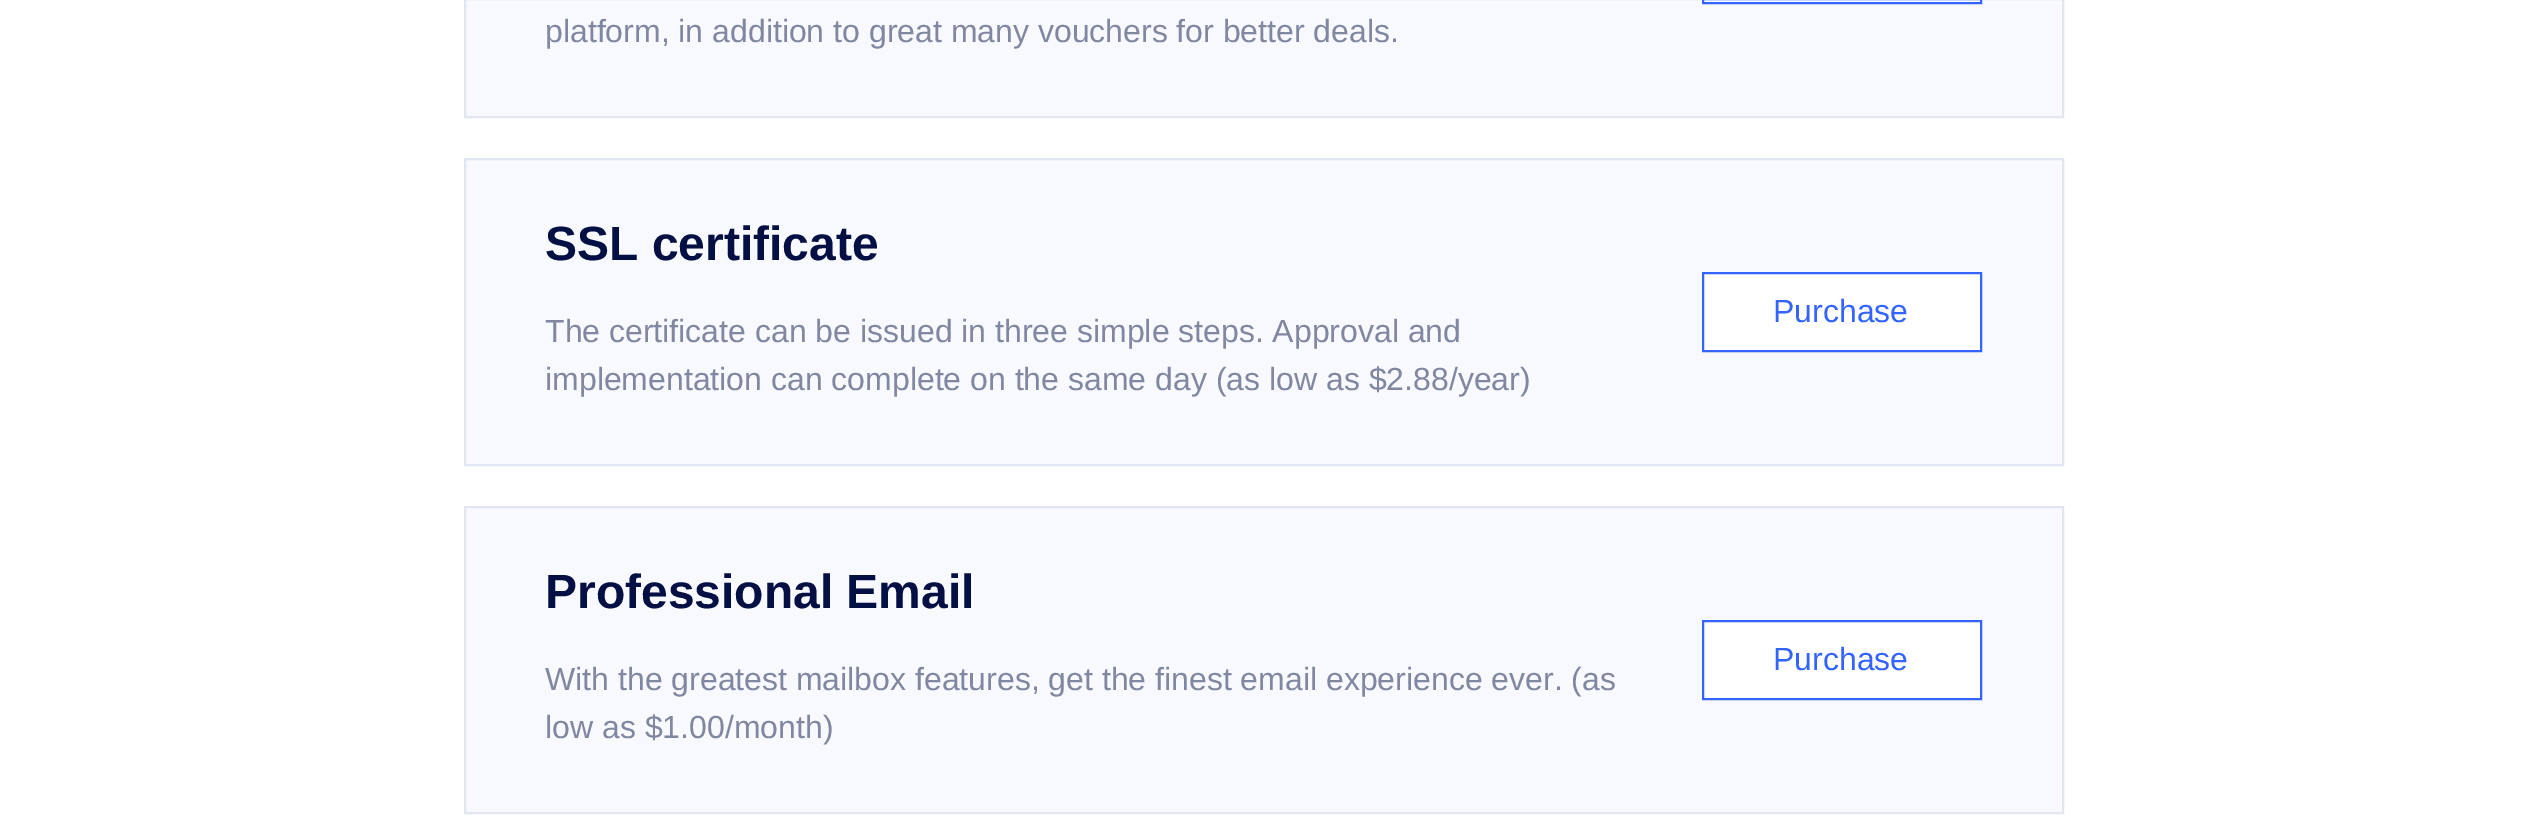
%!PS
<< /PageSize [2525 820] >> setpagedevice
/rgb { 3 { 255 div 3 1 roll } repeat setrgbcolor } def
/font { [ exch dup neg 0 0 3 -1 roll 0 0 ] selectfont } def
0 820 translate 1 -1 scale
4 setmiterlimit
255 255 255 rgb
0 0 2525 820 rectfill
247 249 255 rgb
465 -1 moveto 2063 -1 lineto 2063 117 lineto 465 117 lineto closepath gsave fill grestore
225 230 240 rgb
2 setlinewidth
stroke
255 255 255 rgb
1703 -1 moveto 1981 -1 lineto 1981 3 lineto 1703 3 lineto closepath gsave fill grestore
52 100 255 rgb
stroke
247 249 255 rgb
465 159 moveto 2063 159 lineto 2063 465 lineto 465 465 lineto closepath gsave fill grestore
225 230 240 rgb
stroke
255 255 255 rgb
1703 273 moveto 1981 273 lineto 1981 351 lineto 1703 351 lineto closepath gsave fill grestore
52 100 255 rgb
stroke
247 249 255 rgb
465 507 moveto 2063 507 lineto 2063 813 lineto 465 813 lineto closepath gsave fill grestore
225 230 240 rgb
stroke
255 255 255 rgb
1703 621 moveto 1981 621 lineto 1981 699 lineto 1703 699 lineto closepath gsave fill grestore
52 100 255 rgb
stroke
/LiberationSans-Regular 32 font
129 135 161 rgb
545 42 moveto (platform, in addition to great many vouchers for better deals.) show
/LiberationSans-Bold 48 font
4 15 67 rgb
545 260 moveto (SSL certificate) show
/LiberationSans-Regular 32 font
129 135 161 rgb
545 342 moveto (The certificate can be issued in three simple steps. Approval and) show
545 390 moveto (implementation can complete on the same day \(as low as $2.88/year\)) show
52 100 255 rgb
1773 322 moveto (Purchase) show
/LiberationSans-Bold 48 font
4 15 67 rgb
545 608 moveto (Professional Email) show
/LiberationSans-Regular 32 font
129 135 161 rgb
545 690 moveto (With the greatest mailbox features, get the finest email experience ever. \(as) show
545 738 moveto (low as $1.00/month\)) show
52 100 255 rgb
1773 670 moveto (Purchase) show
showpage
